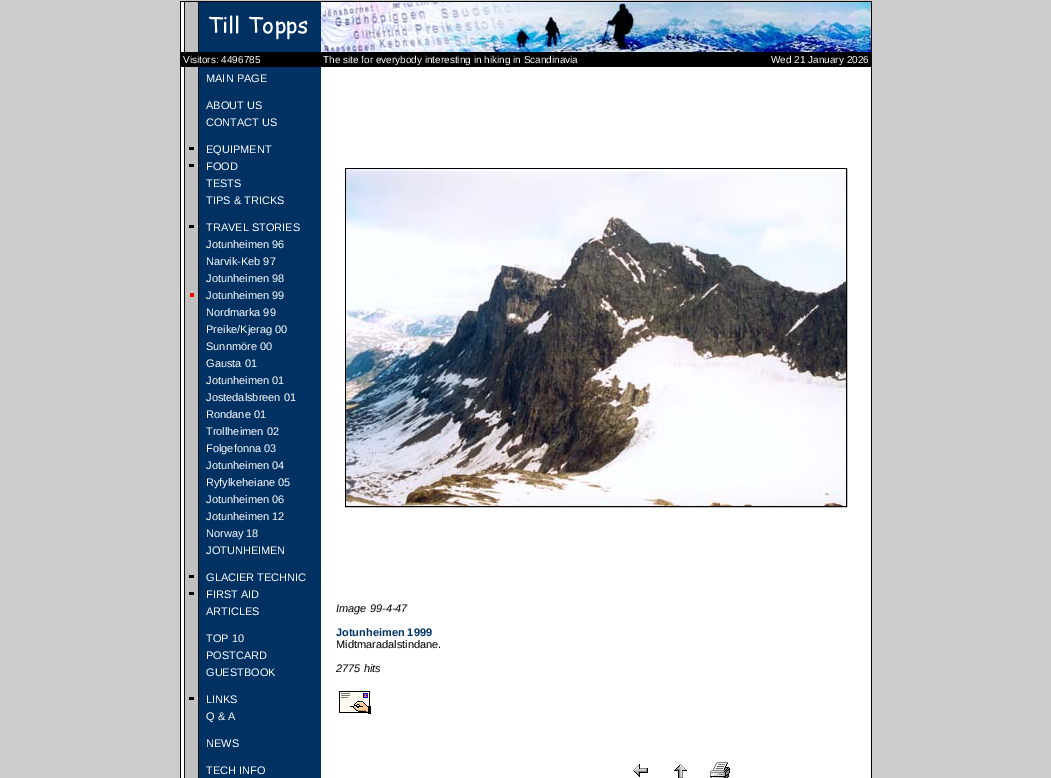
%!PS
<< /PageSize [1051 778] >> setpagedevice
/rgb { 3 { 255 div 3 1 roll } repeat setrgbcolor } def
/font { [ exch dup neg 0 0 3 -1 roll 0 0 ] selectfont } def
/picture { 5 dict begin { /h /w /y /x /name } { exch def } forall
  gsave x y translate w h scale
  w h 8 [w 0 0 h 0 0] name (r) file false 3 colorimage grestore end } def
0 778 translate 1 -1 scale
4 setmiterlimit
204 204 204 rgb
0 0 1051 778 rectfill
0 0 0 rgb
180 1 692 777 rectfill
255 255 255 rgb
181 2 690 776 rectfill
(img/1.rgb) 184 2 137 50 picture
(img/2.rgb) 321 2 550 50 picture
0 0 0 rgb
181 52 690 15 rectfill
(img/3.rgb) 184 67 137 711 picture
[
  [189 147 5 3 0 0 0]
  [189 164 5 3 0 0 0]
  [189 225 5 3 0 0 0]
  [190 293 4 4 255 1 1]
  [189 575 5 3 0 0 0]
  [189 592 5 3 0 0 0]
  [189 697 5 3 0 0 0]
] { aload pop rgb rectfill } forall
345.5 168.5 501 338 rectstroke
(img/4.rgb) 346 169 500 337 picture
(img/5.rgb) 339 691 32 23 picture
(img/6.rgb) 633 764 15 13 picture
(img/7.rgb) 674 764 13 14 picture
(img/8.rgb) 710 762 20 16 picture
/LiberationSans-Regular 10 font
255 255 255 rgb
[
  [(Visitors: 4496785) 183 63]
  [(The site for everybody interesting in hiking in Scandinavia) 323 63]
  [(Wed 21 January 2026) 771 63]
] { aload pop moveto show } forall
/LiberationSans-Regular 11 font
[
  [(MAIN PAGE) 206 82]
  [(ABOUT US) 206 109]
  [(CONTACT US) 206 126]
  [(EQUIPMENT) 206 153]
  [(FOOD) 206 170]
  [(TESTS) 206 187]
  [(TIPS & TRICKS) 206 204]
  [(TRAVEL STORIES) 206 231]
  [(Jotunheimen 96) 206 248]
  [(Narvik-Keb 97) 206 265]
  [(Jotunheimen 98) 206 282]
  [(Jotunheimen 99) 206 299]
  [(Nordmarka 99) 206 316]
  [(Preike/Kjerag 00) 206 333]
  [(Sunnmöre 00) 206 350]
  [(Gausta 01) 206 367]
  [(Jotunheimen 01) 206 384]
  [(Jostedalsbreen 01) 206 401]
  [(Rondane 01) 206 418]
  [(Trollheimen 02) 206 435]
  [(Folgefonna 03) 206 452]
  [(Jotunheimen 04) 206 469]
  [(Ryfylkeheiane 05) 206 486]
  [(Jotunheimen 06) 206 503]
  [(Jotunheimen 12) 206 520]
  [(Norway 18) 206 537]
  [(JOTUNHEIMEN) 206 554]
  [(GLACIER TECHNIC) 206 581]
  [(FIRST AID) 206 598]
  [(ARTICLES) 206 615]
  [(TOP 10) 206 642]
  [(POSTCARD) 206 659]
  [(GUESTBOOK) 206 676]
  [(LINKS) 206 703]
  [(Q & A) 206 720]
  [(NEWS) 206 747]
  [(TECH INFO) 206 774]
] { aload pop moveto show } forall
/LiberationSans-Italic 11 font
0 0 0 rgb
336 612 moveto (Image 99-4-47) show
/LiberationSans-Bold 11 font
0 51 102 rgb
336 636 moveto (Jotunheimen 1999) show
/LiberationSans-Regular 11 font
0 0 0 rgb
336 648 moveto (Midtmaradalstindane.) show
/LiberationSans-Italic 11 font
336 672 moveto (2775 hits) show
showpage
